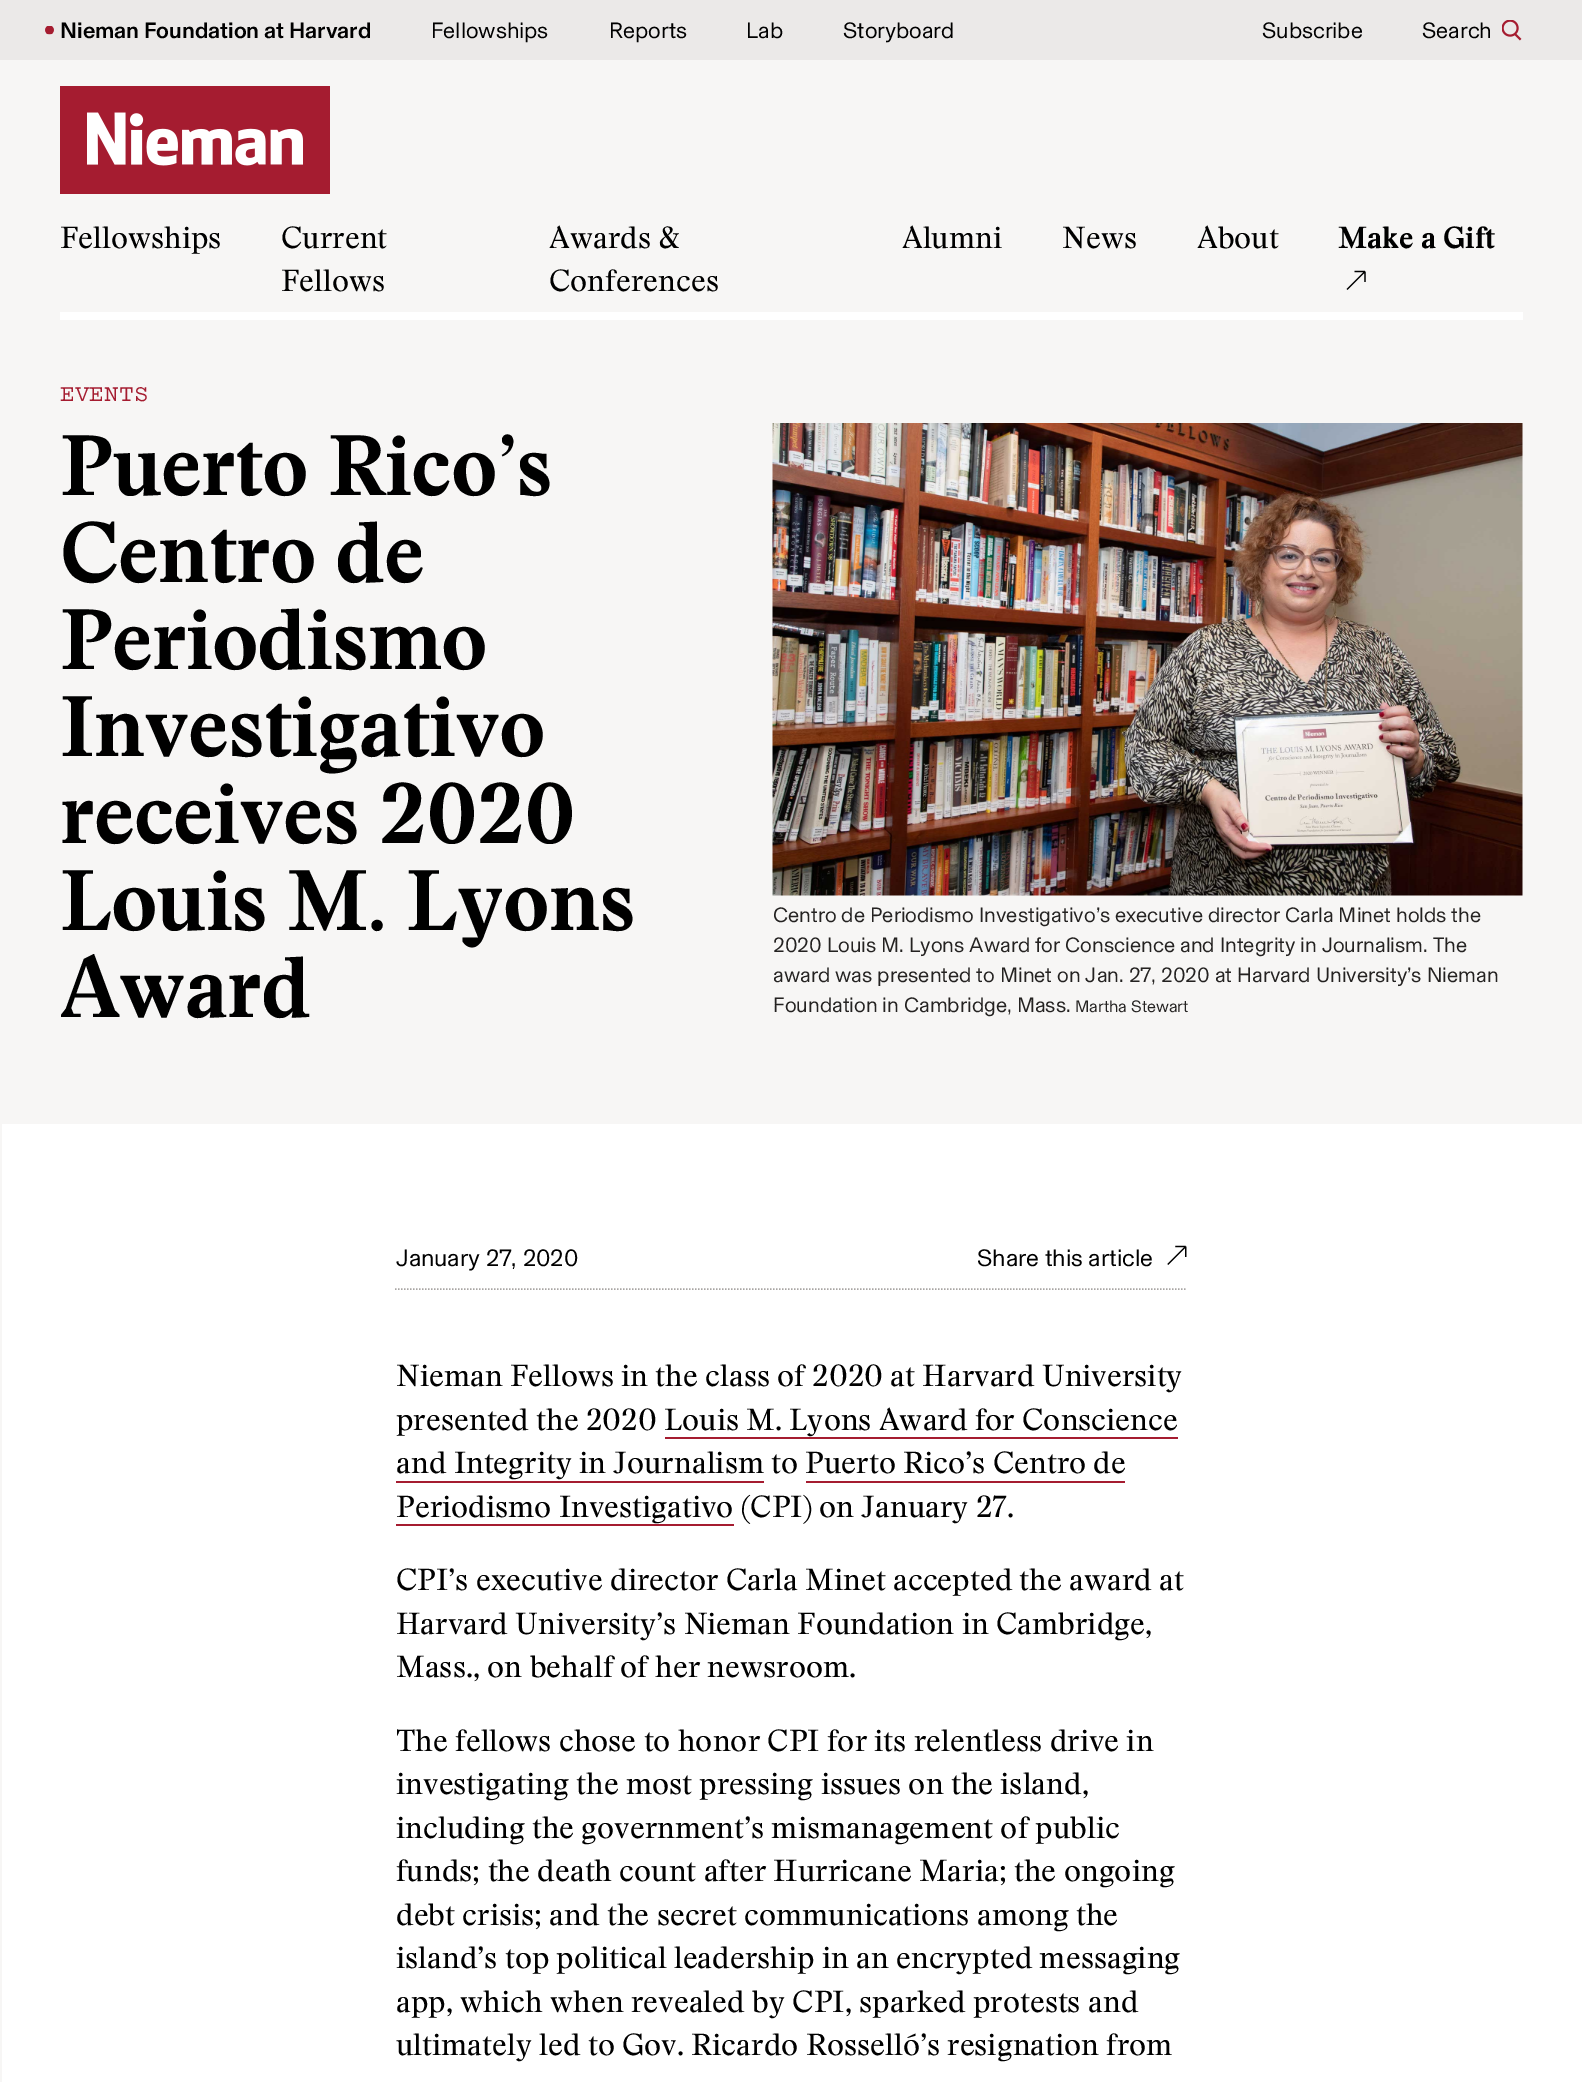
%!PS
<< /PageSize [1582 2082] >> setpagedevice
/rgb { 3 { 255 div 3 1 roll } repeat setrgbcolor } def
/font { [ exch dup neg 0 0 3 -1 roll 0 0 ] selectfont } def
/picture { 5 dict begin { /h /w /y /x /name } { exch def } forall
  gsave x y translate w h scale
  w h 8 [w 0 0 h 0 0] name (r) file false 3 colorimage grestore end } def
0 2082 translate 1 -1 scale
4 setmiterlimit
247 246 245 rgb
0 0 1582 2082 rectfill
235 233 232 rgb
0 0 1582 60 rectfill
(img/1.rgb) 45 26 9 9 picture
(img/2.rgb) 1502 20 20 21 picture
(img/3.rgb) 60 86 270 108 picture
(img/4.rgb) 1346 270 20 20 picture
255 255 255 rgb
60 312 1463 8 rectfill
(img/5.rgb) 772 423 751 473 picture
2 1124 1580 958 rectfill
168 165 163 rgb
1.5 setlinewidth
[1.5 1.5] 0 setdash
395 1289 moveto 1187 1289 lineto stroke
(img/6.rgb) 1167 1245 20 20 picture
[
  [665 1437 513 2 165 28 48]
  [396 1481 368 2 165 28 48]
  [806 1481 319 2 165 28 48]
  [396 1524 338 2 165 28 48]
] { aload pop rgb rectfill } forall
/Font-Medium 22.5 font
0 0 0 rgb
60 38 moveto (Nieman Foundation at Harvard) show
/Font-Regular 22.5 font
[
  [(Fellowships) 431 38]
  [(Reports) 609 38]
  [(Lab) 746 38]
  [(Storyboard) 843 38]
  [(Subscribe) 1262 38]
  [(Search) 1422 38]
] { aload pop moveto show } forall
/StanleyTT-Regular 30 font
[
  [(Fellowships) 60 248]
  [(Current) 281 248]
  [(Fellows) 281 291]
  [(Awards &) 549 248]
  [(Conferences) 549 291]
  [(Alumni) 902 248]
  [(News) 1062 248]
  [(About) 1197 248]
] { aload pop moveto show } forall
/StanleyTT-Bold 30 font
1338 248 moveto (Make a Gift) show
/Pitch-Medium 24 font
165 28 48 rgb
60 401 moveto (EVENTS) show
/StanleyTT-Bold 84 font
0 0 0 rgb
60 495 moveto -0.8 0 (Puerto Rico’s) ashow
60 582 moveto -0.8 0 (Centro de) ashow
60 669 moveto -0.8 0 (Periodismo) ashow
60 756 moveto -0.8 0 (Investigativo) ashow
60 843 moveto -0.8 0 (receives 2020) ashow
60 930 moveto -0.8 0 (Louis M. Lyons) ashow
60 1017 moveto -0.8 0 (Award) ashow
/Font-Regular 21 font
36 34 33 rgb
[
  [(Centro de Periodismo Investigativo’s executive director Carla Minet holds the) 773 922]
  [(2020 Louis M. Lyons Award for Conscience and Integrity in Journalism. The) 773 952]
  [(award was presented to Minet on Jan. 27, 2020 at Harvard University’s Nieman) 773 982]
  [(Foundation in Cambridge, Mass.) 773 1012]
] { aload pop moveto show } forall
/Font-Regular 16.75 font
1075 1012 moveto (Martha Stewart) show
/Font-Regular 24 font
0 0 0 rgb
396 1266 moveto (January 27, 2020) show
977 1266 moveto (Share this article) show
/StanleyTT-Regular 30 font
[
  [(Nieman Fellows in the class of 2020 at Harvard University) 396 1386]
  [(presented the 2020 Louis M. Lyons Award for Conscience) 396 1430]
  [(and Integrity in Journalism to Puerto Rico’s Centro de) 396 1473]
  [(Periodismo Investigativo \(CPI\) on January 27.) 396 1517]
  [(CPI’s executive director Carla Minet accepted the award at) 396 1590]
  [(Harvard University’s Nieman Foundation in Cambridge,) 396 1634]
  [(Mass., on behalf of her newsroom.) 396 1677]
  [(The fellows chose to honor CPI for its relentless drive in) 396 1751]
  [(investigating the most pressing issues on the island,) 396 1794]
  [(including the government’s mismanagement of public) 396 1838]
  [(funds; the death count after Hurricane Maria; the ongoing) 396 1881]
  [(debt crisis; and the secret communications among the) 396 1925]
  [(island’s top political leadership in an encrypted messaging) 396 1968]
  [(app, which when revealed by CPI, sparked protests and) 396 2012]
  [(ultimately led to Gov. Ricardo Rosselló’s resignation from) 396 2055]
] { aload pop moveto show } forall
showpage
